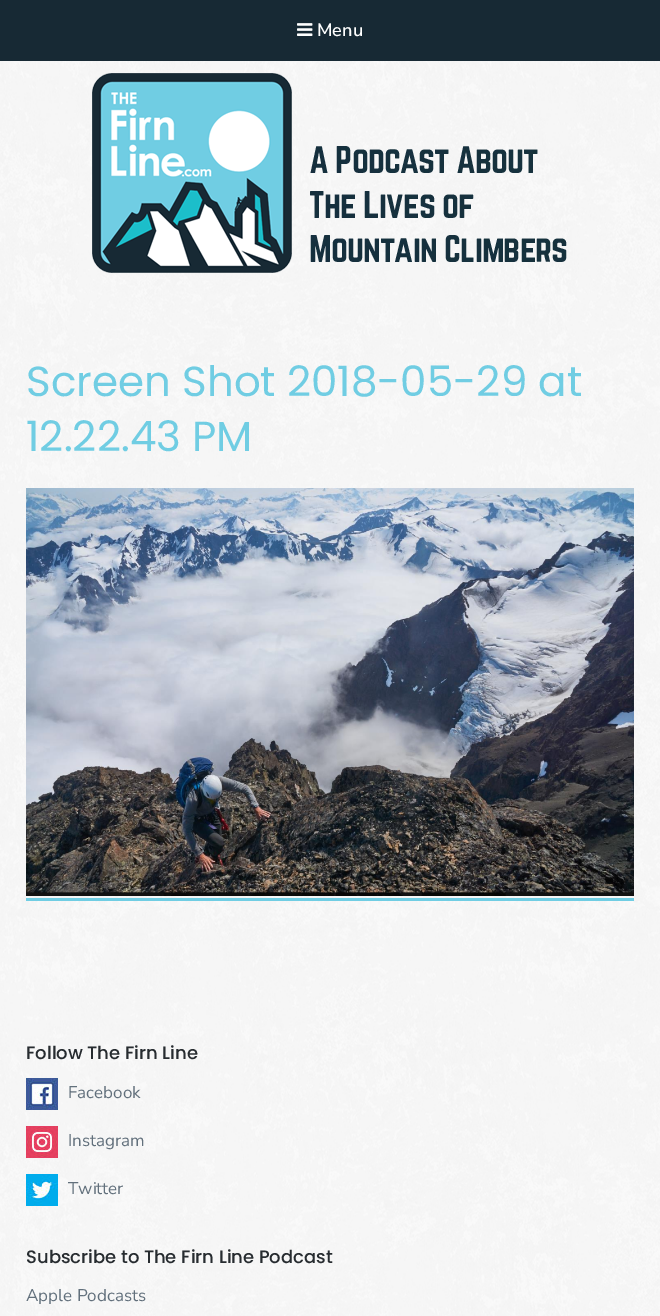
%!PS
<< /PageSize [660 1316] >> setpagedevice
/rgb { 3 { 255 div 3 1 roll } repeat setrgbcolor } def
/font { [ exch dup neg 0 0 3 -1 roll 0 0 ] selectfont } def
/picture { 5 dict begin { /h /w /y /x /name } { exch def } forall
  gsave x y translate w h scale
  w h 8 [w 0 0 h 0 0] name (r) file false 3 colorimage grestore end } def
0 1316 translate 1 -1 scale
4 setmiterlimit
255 255 255 rgb
0 0 660 1316 rectfill
(img/1.rgb) 0 61 660 1255 picture
23 41 52 rgb
0 0 660 61 rectfill
(img/2.rgb) 297 23 16 13 picture
(img/3.rgb) 92 73 475 200 picture
(img/4.rgb) 26 488 608 408 picture
112 205 227 rgb
26 898 608 3 rectfill
(img/5.rgb) 26 1078 32 32 picture
(img/6.rgb) 26 1126 32 32 picture
(img/7.rgb) 26 1174 32 32 picture
/NunitoSans-SemiBold 18 font
255 255 255 rgb
317 36 moveto (Menu) show
/Poppins-Regular 42 font
112 205 227 rgb
26 396 moveto (Screen Shot 2018-05-29 at) show
26 451 moveto (12.22.43 PM) show
/Poppins-Medium 18 font
39 44 48 rgb
26 1059 moveto (Follow The Firn Line) show
/NunitoSans-Regular 17 font
98 112 124 rgb
[
  [(Facebook) 68 1098]
  [(Instagram) 68 1146]
  [(Twitter) 68 1194]
] { aload pop moveto show } forall
/Poppins-Medium 18 font
39 44 48 rgb
26 1263 moveto (Subscribe to The Firn Line Podcast) show
/NunitoSans-Regular 17 font
98 112 124 rgb
26 1301 moveto (Apple Podcasts) show
showpage
